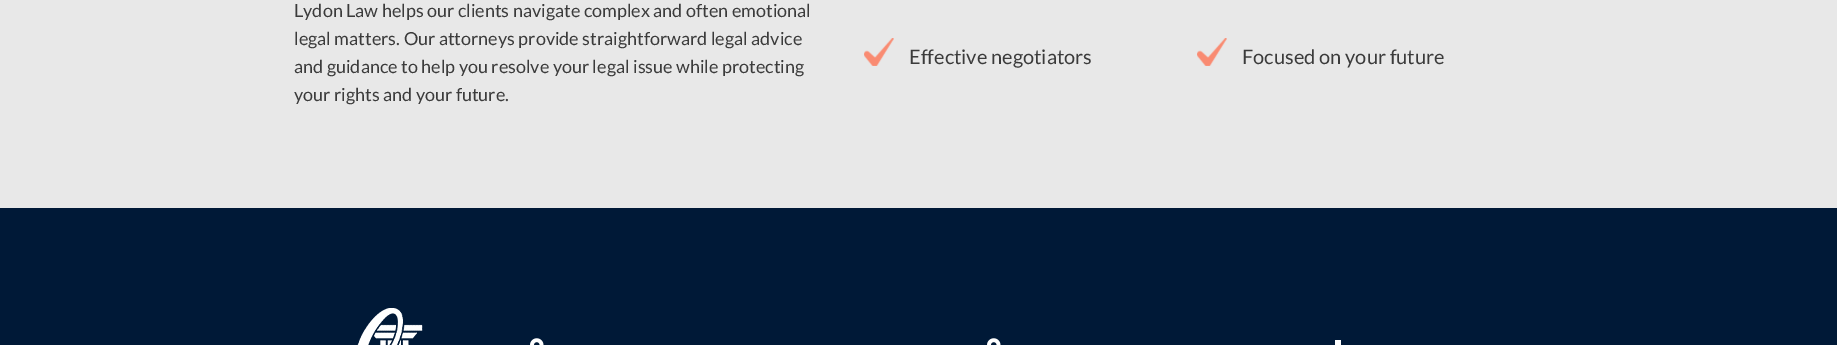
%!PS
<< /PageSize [1837 345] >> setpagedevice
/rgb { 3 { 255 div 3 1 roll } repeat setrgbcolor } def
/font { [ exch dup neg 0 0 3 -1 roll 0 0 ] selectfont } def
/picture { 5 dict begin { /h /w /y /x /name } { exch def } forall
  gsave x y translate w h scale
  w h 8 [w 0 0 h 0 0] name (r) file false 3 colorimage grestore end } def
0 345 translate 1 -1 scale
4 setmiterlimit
232 232 232 rgb
0 0 1837 345 rectfill
(img/1.rgb) 864 38 30 28 picture
(img/1.rgb) 1197 38 30 28 picture
0 25 55 rgb
0 208 1837 137 rectfill
(img/2.rgb) 357 308 66 37 picture
(img/3.rgb) 530 338 14 7 picture
(img/3.rgb) 987 338 14 7 picture
255 255 255 rgb
1335 340 6 5 rectfill
/Lato-Regular 18 font
59 59 59 rgb
[
  [(Lydon Law helps our clients navigate complex and often emotional) 294 17]
  [(legal matters. Our attorneys provide straightforward legal advice) 294 45]
  [(and guidance to help you resolve your legal issue while protecting) 294 73]
  [(your rights and your future.) 294 101]
] { aload pop moveto show } forall
/Lato-Regular 20 font
909 64 moveto (Effective negotiators) show
1242 64 moveto (Focused on your future) show
showpage
